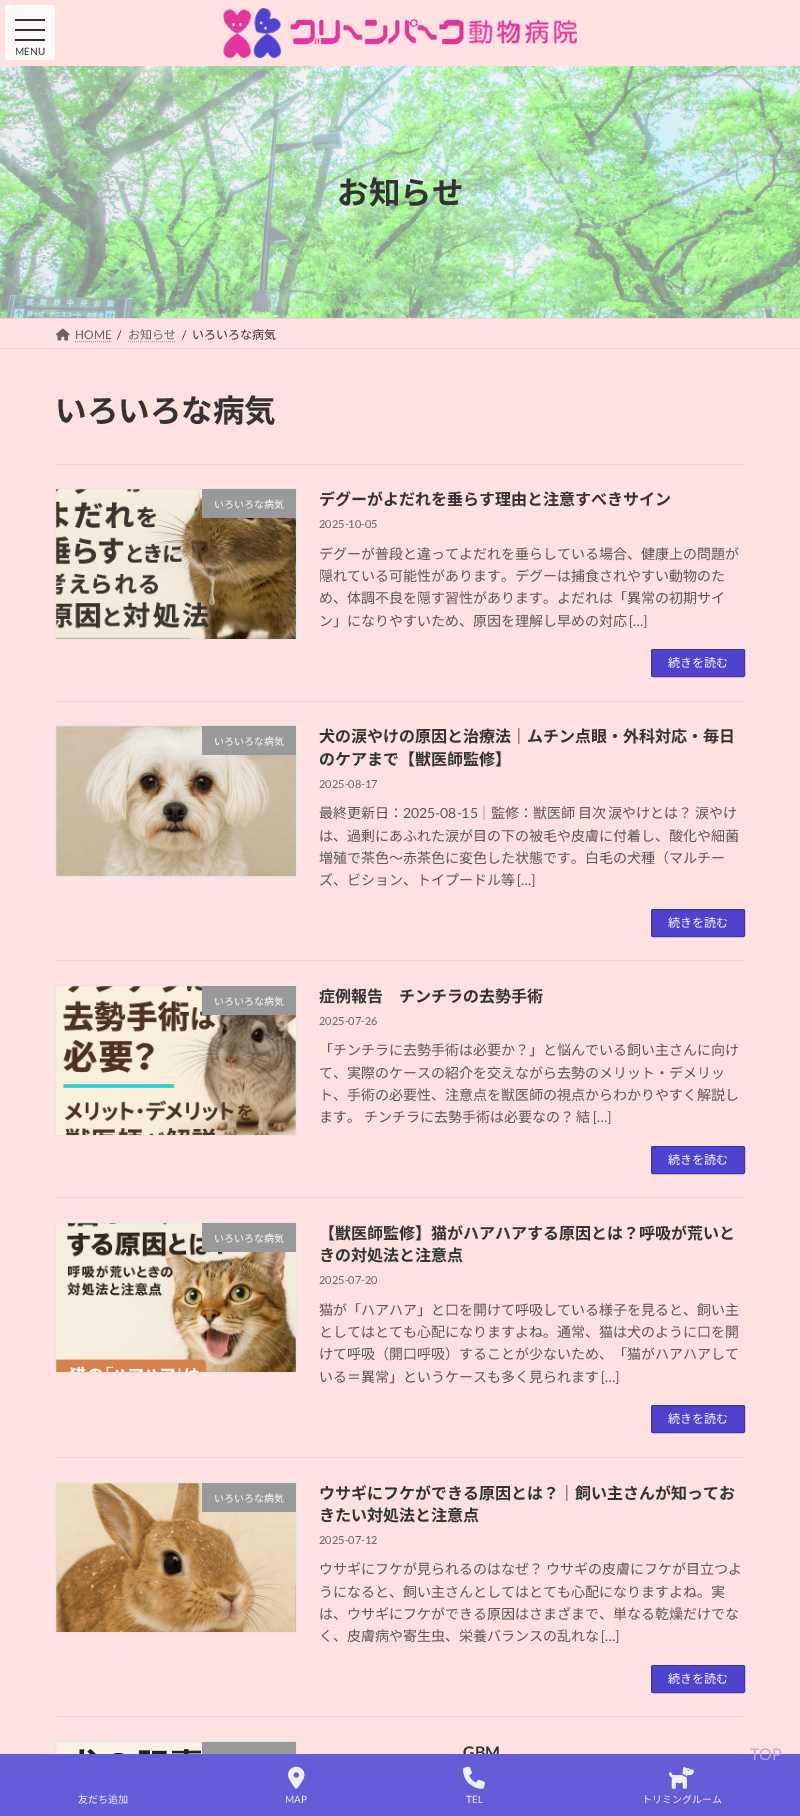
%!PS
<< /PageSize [800 1816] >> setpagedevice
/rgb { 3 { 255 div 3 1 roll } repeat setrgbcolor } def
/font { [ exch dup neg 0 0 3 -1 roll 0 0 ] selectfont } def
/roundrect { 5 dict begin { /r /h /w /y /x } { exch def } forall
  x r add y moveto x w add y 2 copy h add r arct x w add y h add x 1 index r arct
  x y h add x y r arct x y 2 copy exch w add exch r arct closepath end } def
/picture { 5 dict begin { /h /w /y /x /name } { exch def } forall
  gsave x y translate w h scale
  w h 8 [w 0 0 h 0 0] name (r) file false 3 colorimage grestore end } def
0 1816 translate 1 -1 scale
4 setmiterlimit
255 225 225 rgb
0 0 800 1816 rectfill
255 249 249 rgb
5 5 50 55 2 roundrect fill
[
  [15 19 30 2 51 50 50]
  [15 29 30 2 51 50 50]
  [15 39 30 2 51 50 50]
] { aload pop rgb rectfill } forall
(img/1.rgb) 223 8 354 50 picture
(img/2.rgb) 0 66 800 252 picture
240 212 212 rgb
0 318 800 1 rectfill
0 348 800 1 rectfill
(img/3.rgb) 56 328 14 13 picture
179 158 158 rgb
[1 1] 0 setdash
75 341.5 moveto 111.5 341.5 lineto stroke
128 341.5 moveto 176 341.5 lineto stroke
240 212 212 rgb
55 464 690 1 rectfill
55 701 690 1 rectfill
(img/4.rgb) 56 489 240 150 picture
229 229 229 rgb
[] 0 setdash
55.5 488.5 241 151 rectstroke
153 153 153 rgb
202 489 94 29 rectfill
79 66 207 rgb
651.5 649.5 93 27 1.5 roundrect gsave fill grestore
63 53 166 rgb
stroke
240 212 212 rgb
55 960 690 1 rectfill
(img/5.rgb) 56 726 240 150 picture
229 229 229 rgb
55.5 725.5 241 151 rectstroke
153 153 153 rgb
202 726 94 29 rectfill
79 66 207 rgb
651.5 909.5 93 27 1.5 roundrect gsave fill grestore
63 53 166 rgb
stroke
240 212 212 rgb
55 1197 690 1 rectfill
(img/6.rgb) 56 986 240 149 picture
229 229 229 rgb
55.5 985.5 241 150 rectstroke
153 153 153 rgb
202 986 94 29 rectfill
79 66 207 rgb
651.5 1146.5 93 27 1.5 roundrect gsave fill grestore
63 53 166 rgb
stroke
240 212 212 rgb
55 1457 690 1 rectfill
(img/7.rgb) 56 1223 240 149 picture
229 229 229 rgb
55.5 1222.5 241 150 rectstroke
153 153 153 rgb
202 1223 94 29 rectfill
79 66 207 rgb
651.5 1405.5 93 27 1.5 roundrect gsave fill grestore
63 53 166 rgb
stroke
240 212 212 rgb
55 1716 690 1 rectfill
(img/8.rgb) 56 1483 240 149 picture
229 229 229 rgb
55.5 1482.5 241 150 rectstroke
153 153 153 rgb
202 1483 94 29 rectfill
79 66 207 rgb
651.5 1665.5 93 27 1.5 roundrect gsave fill grestore
63 53 166 rgb
stroke
(img/9.rgb) 56 1742 146 12 picture
229 229 229 rgb
55.5 1741.5 241 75 rectstroke
153 153 153 rgb
202 1742 94 12 rectfill
/Lato-Regular 10 font
51 51 51 rgb
15 55 moveto (MENU) show
/NotoSansJP-Bold 31.5 font
337 204 moveto (お知らせ) show
/Lato-Regular 12 font
102 102 102 rgb
75 339 moveto (HOME) show
51 51 51 rgb
117 339 moveto (/) show
/NotoSansJP-Regular 12 font
102 102 102 rgb
128 339 moveto (お知らせ) show
/Lato-Regular 12 font
51 51 51 rgb
182 339 moveto (/) show
/NotoSansJP-Regular 12 font
192 339 moveto (いろいろな病気) show
/NotoSansJP-Bold 31.5 font
55 422 moveto (いろいろな病気) show
/NotoSansJP-Regular 10 font
255 255 255 rgb
214 508 moveto (いろいろな病気) show
/NotoSansJP-Bold 16 font
51 51 51 rgb
319 505 moveto (デグーがよだれを垂らす理由と注意すべきサイン) show
/Lato-Regular 11 font
102 102 102 rgb
319 528 moveto (2025-10-05) show
/NotoSansJP-Regular 14 font
92 86 86 rgb
[
  [(デグーが普段と違ってよだれを垂らしている場合、健康上の問題が) 319 559]
  [(隠れている可能性があります。デグーは捕食されやすい動物のた) 319 581]
  [(め、体調不良を隠す習性があります。よだれは「異常の初期サイ) 319 603]
  [(ン」になりやすいため、原因を理解し早めの対応) 319 626]
] { aload pop moveto show } forall
/Lato-Regular 14 font
629 626 moveto ([…]) show
/NotoSansJP-Regular 12 font
255 255 255 rgb
668 667 moveto (続きを読む) show
/NotoSansJP-Regular 10 font
214 745 moveto (いろいろな病気) show
/NotoSansJP-Bold 16 font
51 51 51 rgb
319 742 moveto (犬の涙やけの原因と治療法｜ムチン点眼・外科対応・毎日) show
319 765 moveto (のケアまで【獣医師監修】) show
/Lato-Regular 11 font
102 102 102 rgb
319 788 moveto (2025-08-17) show
/NotoSansJP-Regular 14 font
92 86 86 rgb
319 818 moveto (最終更新日：) show
/Lato-Regular 14 font
403 818 moveto (2025-08-15) show
/NotoSansJP-Regular 14 font
477 818 moveto -0.5 0 32 (｜監修：獣医師 目次 涙やけとは？ 涙やけ) widthshow
[
  [(は、過剰にあふれた涙が目の下の被毛や皮膚に付着し、酸化や細菌) 319 841]
  [(増殖で茶色～赤茶色に変色した状態です。白毛の犬種（マルチー) 319 863]
  [(ズ、ビション、トイプードル等) 319 885]
] { aload pop moveto show } forall
/Lato-Regular 14 font
517 885 moveto ([…]) show
/NotoSansJP-Regular 12 font
255 255 255 rgb
668 927 moveto (続きを読む) show
/NotoSansJP-Regular 10 font
214 1005 moveto (いろいろな病気) show
/NotoSansJP-Bold 16 font
51 51 51 rgb
319 1002 moveto (症例報告　チンチラの去勢手術) show
/Lato-Regular 11 font
102 102 102 rgb
319 1025 moveto (2025-07-26) show
/NotoSansJP-Regular 14 font
92 86 86 rgb
[
  [(「チンチラに去勢手術は必要か？」と悩んでいる飼い主さんに向け) 319 1055]
  [(て、実際のケースの紹介を交えながら去勢のメリット・デメリッ) 319 1078]
  [(ト、手術の必要性、注意点を獣医師の視点からわかりやすく解説し) 319 1100]
] { aload pop moveto show } forall
319 1122 moveto -0.5 0 32 (ます。 チンチラに去勢手術は必要なの？ 結) widthshow
/Lato-Regular 14 font
593 1122 moveto ([…]) show
/NotoSansJP-Regular 12 font
255 255 255 rgb
668 1164 moveto (続きを読む) show
/NotoSansJP-Regular 10 font
214 1242 moveto (いろいろな病気) show
/NotoSansJP-Bold 16 font
51 51 51 rgb
319 1239 moveto (【獣医師監修】猫がハアハアする原因とは？呼吸が荒いと) show
319 1261 moveto (きの対処法と注意点) show
/Lato-Regular 11 font
102 102 102 rgb
319 1284 moveto (2025-07-20) show
/NotoSansJP-Regular 14 font
92 86 86 rgb
[
  [(猫が「ハアハア」と口を開けて呼吸している様子を見ると、飼い主) 319 1315]
  [(としてはとても心配になりますよね。通常、猫は犬のように口を開) 319 1337]
  [(けて呼吸（開口呼吸）することが少ないため、「猫がハアハアして) 319 1359]
  [(いる＝異常」というケースも多く見られます) 319 1382]
] { aload pop moveto show } forall
/Lato-Regular 14 font
601 1382 moveto ([…]) show
/NotoSansJP-Regular 12 font
255 255 255 rgb
668 1423 moveto (続きを読む) show
/NotoSansJP-Regular 10 font
214 1502 moveto (いろいろな病気) show
/NotoSansJP-Bold 16 font
51 51 51 rgb
319 1499 moveto (ウサギにフケができる原因とは？｜飼い主さんが知ってお) show
319 1521 moveto (きたい対処法と注意点) show
/Lato-Regular 11 font
102 102 102 rgb
319 1544 moveto (2025-07-12) show
/NotoSansJP-Regular 14 font
92 86 86 rgb
319 1574 moveto -0.5 0 32 (ウサギにフケが見られるのはなぜ？ ウサギの皮膚にフケが目立つよ) widthshow
[
  [(うになると、飼い主さんとしてはとても心配になりますよね。実) 319 1597]
  [(は、ウサギにフケができる原因はさまざまで、単なる乾燥だけでな) 319 1619]
  [(く、皮膚病や寄生虫、栄養バランスの乱れな) 319 1641]
] { aload pop moveto show } forall
/Lato-Regular 14 font
601 1641 moveto ([…]) show
/NotoSansJP-Regular 12 font
255 255 255 rgb
668 1683 moveto (続きを読む) show
/Lato-Bold 16 font
51 51 51 rgb
463 1758 moveto (GBM) show
101 93 215 rgb
0 1754 800 62 rectfill
/Lato-Regular 16 font
186 166 221 rgb
750 1760 moveto (TOP) show
/NotoSansJP-Regular 10 font
240 239 250 rgb
78 1803 moveto (友だち追加) show
(img/10.rgb) 288 1766 17 23 picture
/Lato-Regular 10 font
285 1803 moveto (MAP) show
(img/11.rgb) 463 1766 22 23 picture
466 1803 moveto (TEL) show
(img/12.rgb) 669 1766 25 23 picture
/NotoSansJP-Regular 10 font
642 1803 moveto (トリミングルーム) show
showpage
